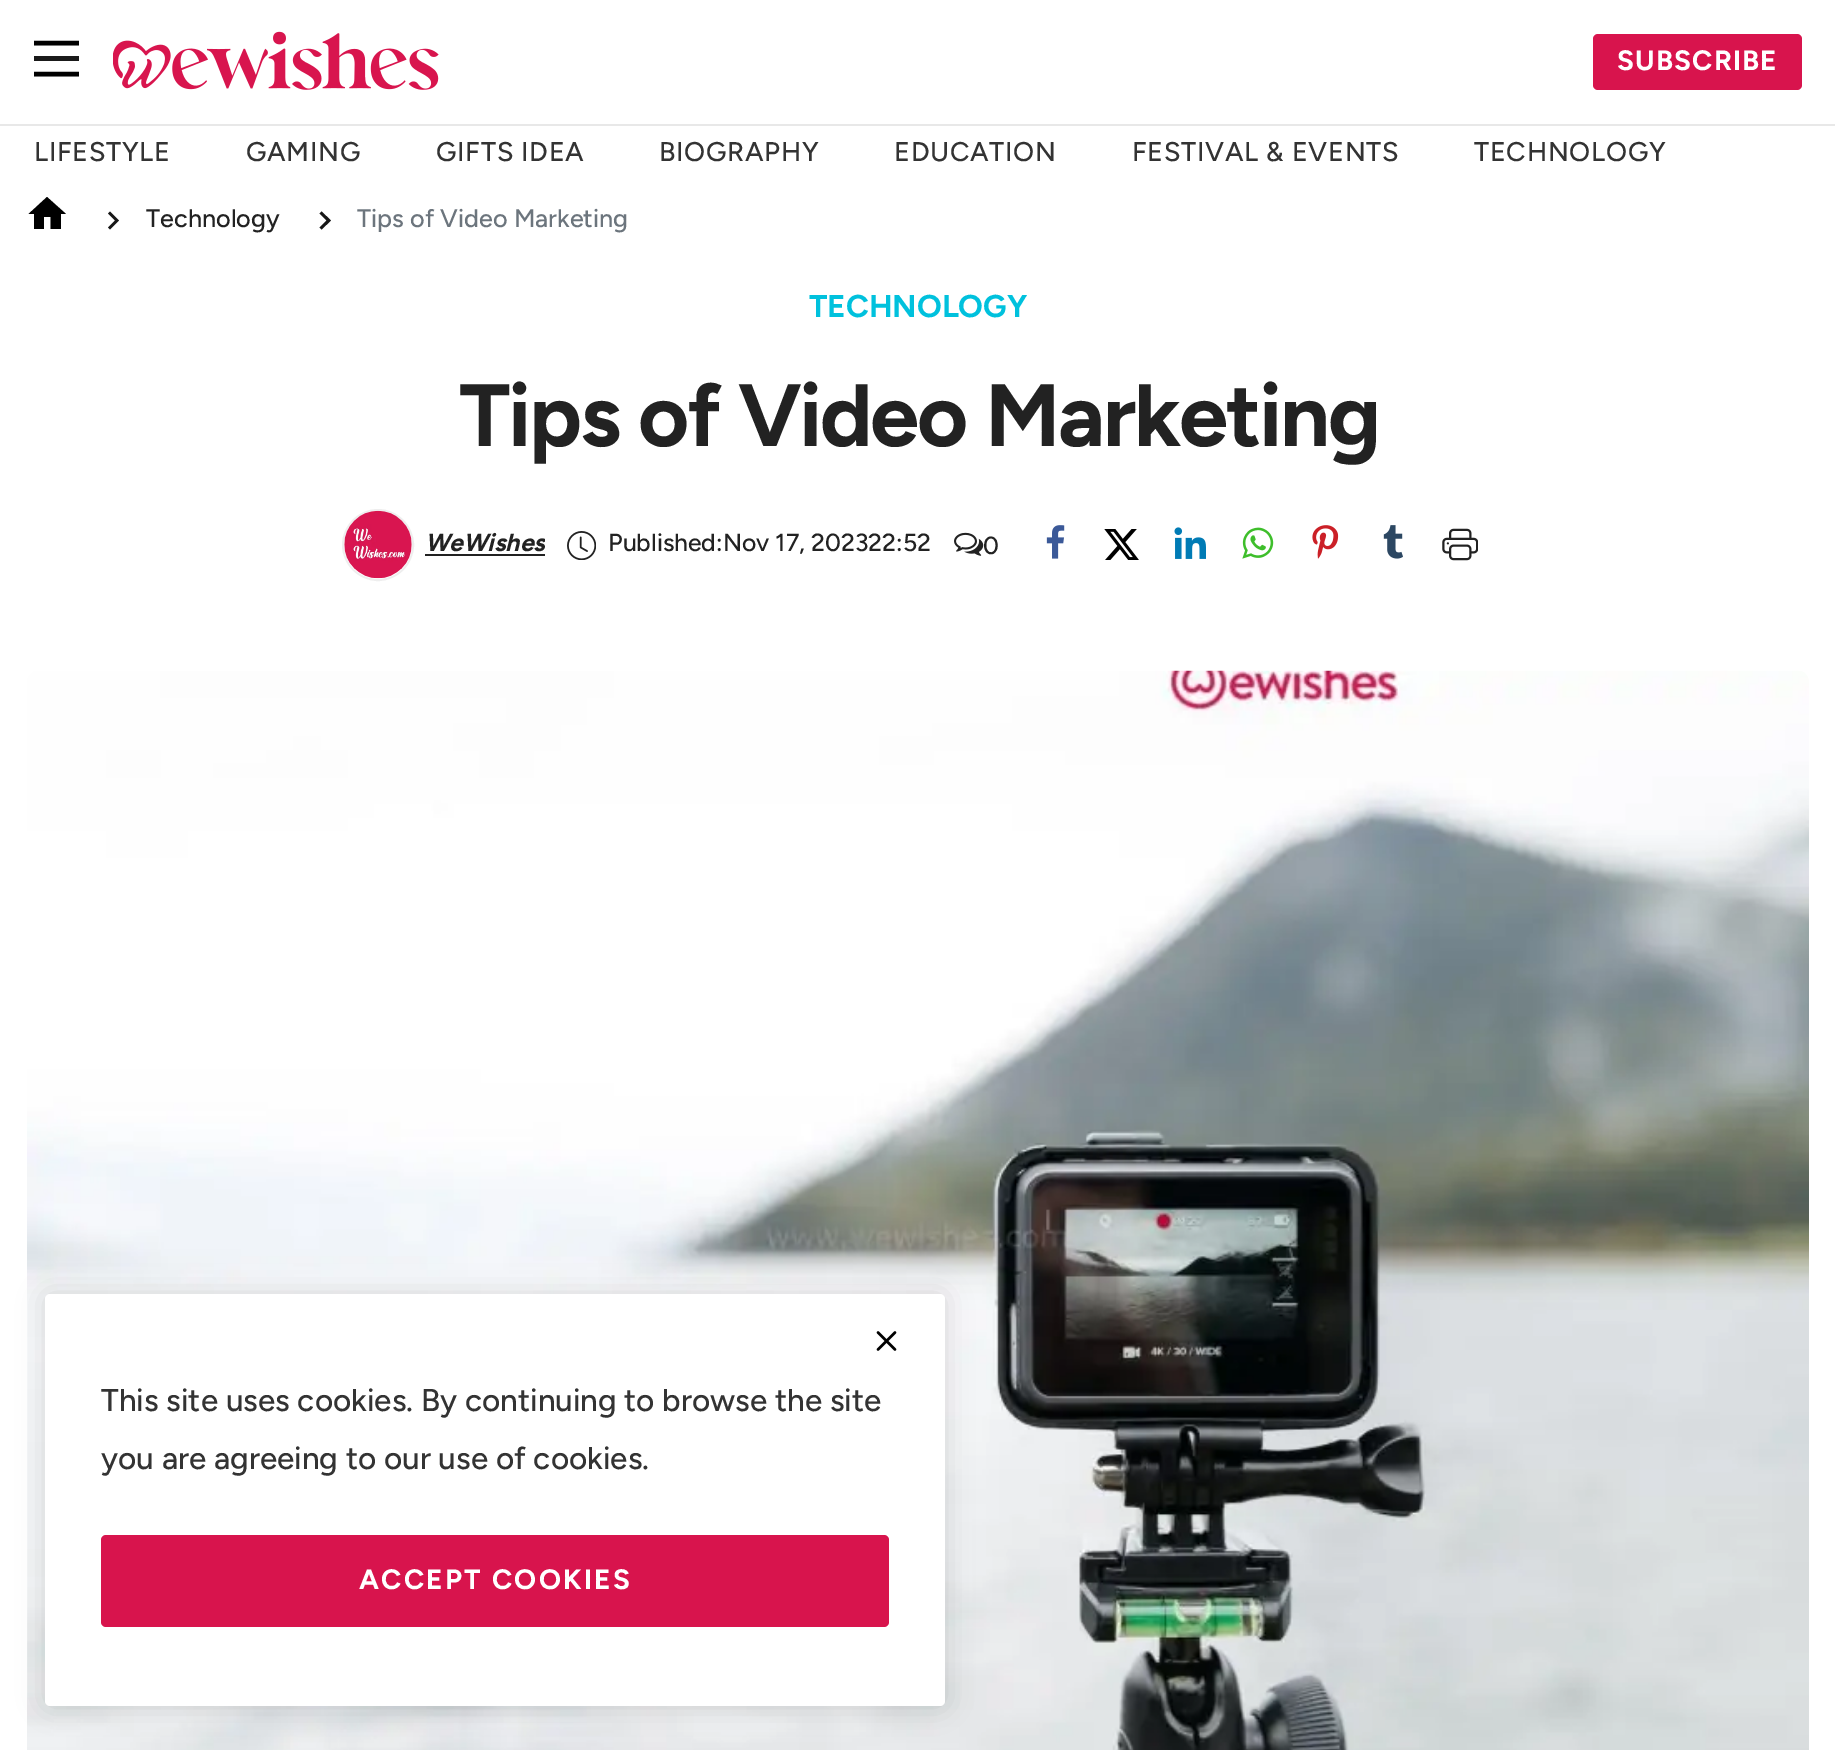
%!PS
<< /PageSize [1835 1750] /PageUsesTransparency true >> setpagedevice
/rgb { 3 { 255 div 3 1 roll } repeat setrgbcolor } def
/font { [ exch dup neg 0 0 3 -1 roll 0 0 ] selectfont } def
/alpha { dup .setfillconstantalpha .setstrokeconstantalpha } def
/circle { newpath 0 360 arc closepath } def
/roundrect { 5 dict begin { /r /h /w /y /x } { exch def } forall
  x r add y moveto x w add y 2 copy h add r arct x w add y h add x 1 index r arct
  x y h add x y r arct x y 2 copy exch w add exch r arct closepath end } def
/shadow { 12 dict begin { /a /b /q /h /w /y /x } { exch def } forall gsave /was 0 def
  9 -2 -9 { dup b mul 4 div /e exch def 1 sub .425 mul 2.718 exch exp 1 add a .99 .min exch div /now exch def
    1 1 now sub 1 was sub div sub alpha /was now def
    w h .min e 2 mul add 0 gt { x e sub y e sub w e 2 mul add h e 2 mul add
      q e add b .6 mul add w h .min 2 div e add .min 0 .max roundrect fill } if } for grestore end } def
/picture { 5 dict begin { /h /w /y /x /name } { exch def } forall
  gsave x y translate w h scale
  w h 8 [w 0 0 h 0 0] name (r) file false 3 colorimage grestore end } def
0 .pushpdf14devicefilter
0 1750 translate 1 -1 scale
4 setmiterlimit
255 255 255 rgb
0 0 1835 1750 rectfill
232 232 232 rgb
0 124 1835 2 rectfill
0 0 0 rgb
4.5 setlinewidth
34 43 moveto 79 43 lineto stroke
26 26 26 rgb
34 56 45 5 rectfill
0 0 0 rgb
34 74 moveto 79 74 lineto stroke
(img/1.rgb) 113 31 326 59 picture
216 20 77 rgb
1593 34 209 56 5 roundrect fill
0 0 0 rgb
47 197 moveto 28.5 214 lineto 34 214 lineto 34 229 lineto 44 229 lineto 44 217 lineto 50.5 217 lineto 50.5 229 lineto 61 229 lineto 61 214 lineto 66 214 lineto closepath fill
23 23 23 rgb
110 211.5 moveto 108 213.5 lineto 115 220.5 lineto 108 227.5 lineto 110 229.5 lineto 119 220.5 lineto closepath fill
321.5 211.5 moveto 319.5 213.5 lineto 326.5 220.5 lineto 319.5 227.5 lineto 321.5 229.5 lineto 331 220.5 lineto closepath fill
238 238 238 rgb
2 setlinewidth
378 545 35 circle stroke
(img/2.rgb) 344 510 68 69 picture
34 34 34 rgb
425 554 120 2 rectfill
(img/3.rgb) 567 531 29 29 picture
(img/4.rgb) 954 532 30 24 picture
(img/5.rgb) 1046 525 19 34 picture
(img/6.rgb) 1104 529 35 31 picture
(img/7.rgb) 1174 527 32 32 picture
(img/8.rgb) 1242 527 32 32 picture
(img/9.rgb) 1312 525 27 34 picture
(img/10.rgb) 1383 525 20 34 picture
(img/11.rgb) 1442 528 36 33 picture
(img/12.rgb) 27 670 1782 1080 picture
0 0 0 rgb
45 1294 900 412 5 13.5 0.14 shadow
255 255 255 rgb
45 1294 900 412 5 roundrect fill
(img/13.rgb) 876 1331 21 20 picture
216 20 77 rgb
101 1535 788 92 5 roundrect fill
/Figtree-Bold 28 font
255 255 255 rgb
1617 70 moveto 1.1 0 (SUBSCRIBE) ashow
/Figtree-Medium 27 font
51 51 51 rgb
34 161 moveto 0.7 0 (LIFESTYLE) ashow
246 161 moveto 0.7 0 (GAMING) ashow
436 161 moveto 0.7 0 (GIFTS IDEA) ashow
659 161 moveto 0.7 0 (BIOGRAPHY) ashow
894 161 moveto 0.7 0 (EDUCATION) ashow
1132 161 moveto 0.7 0 (FESTIVAL & EVENTS) ashow
1474 161 moveto 0.7 0 (TECHNOLOGY) ashow
/Figtree-Medium 25.25 font
34 34 34 rgb
146 227 moveto (Technology) show
108 117 125 rgb
357 227 moveto (Tips of Video Marketing) show
/Figtree-Bold 31.5 font
0 193 221 rgb
809 317 moveto (TECHNOLOGY) show
/Figtree-Bold 88.25 font
34 34 34 rgb
459 446 moveto -2.25 0 (Tips of Video Marketing) ashow
gsave
342 509 203 72 rectclip
/Figtree-BoldItalic 24.75 font
425 551 moveto (WeWishes) show
grestore
/Figtree-Medium 24.75 font
608 551 moveto (Published:Nov 17, 202322:52) show
983 554 moveto (0) show
/Figtree-Medium 31.5 font
51 51 51 rgb
101 1411 moveto (This site uses cookies. By continuing to browse the site) show
101 1469 moveto (you are agreeing to our use of cookies.) show
/Figtree-Bold 28 font
255 255 255 rgb
359 1589 moveto 2.25 0 (ACCEPT COOKIES) ashow
.poppdf14devicefilter showpage
